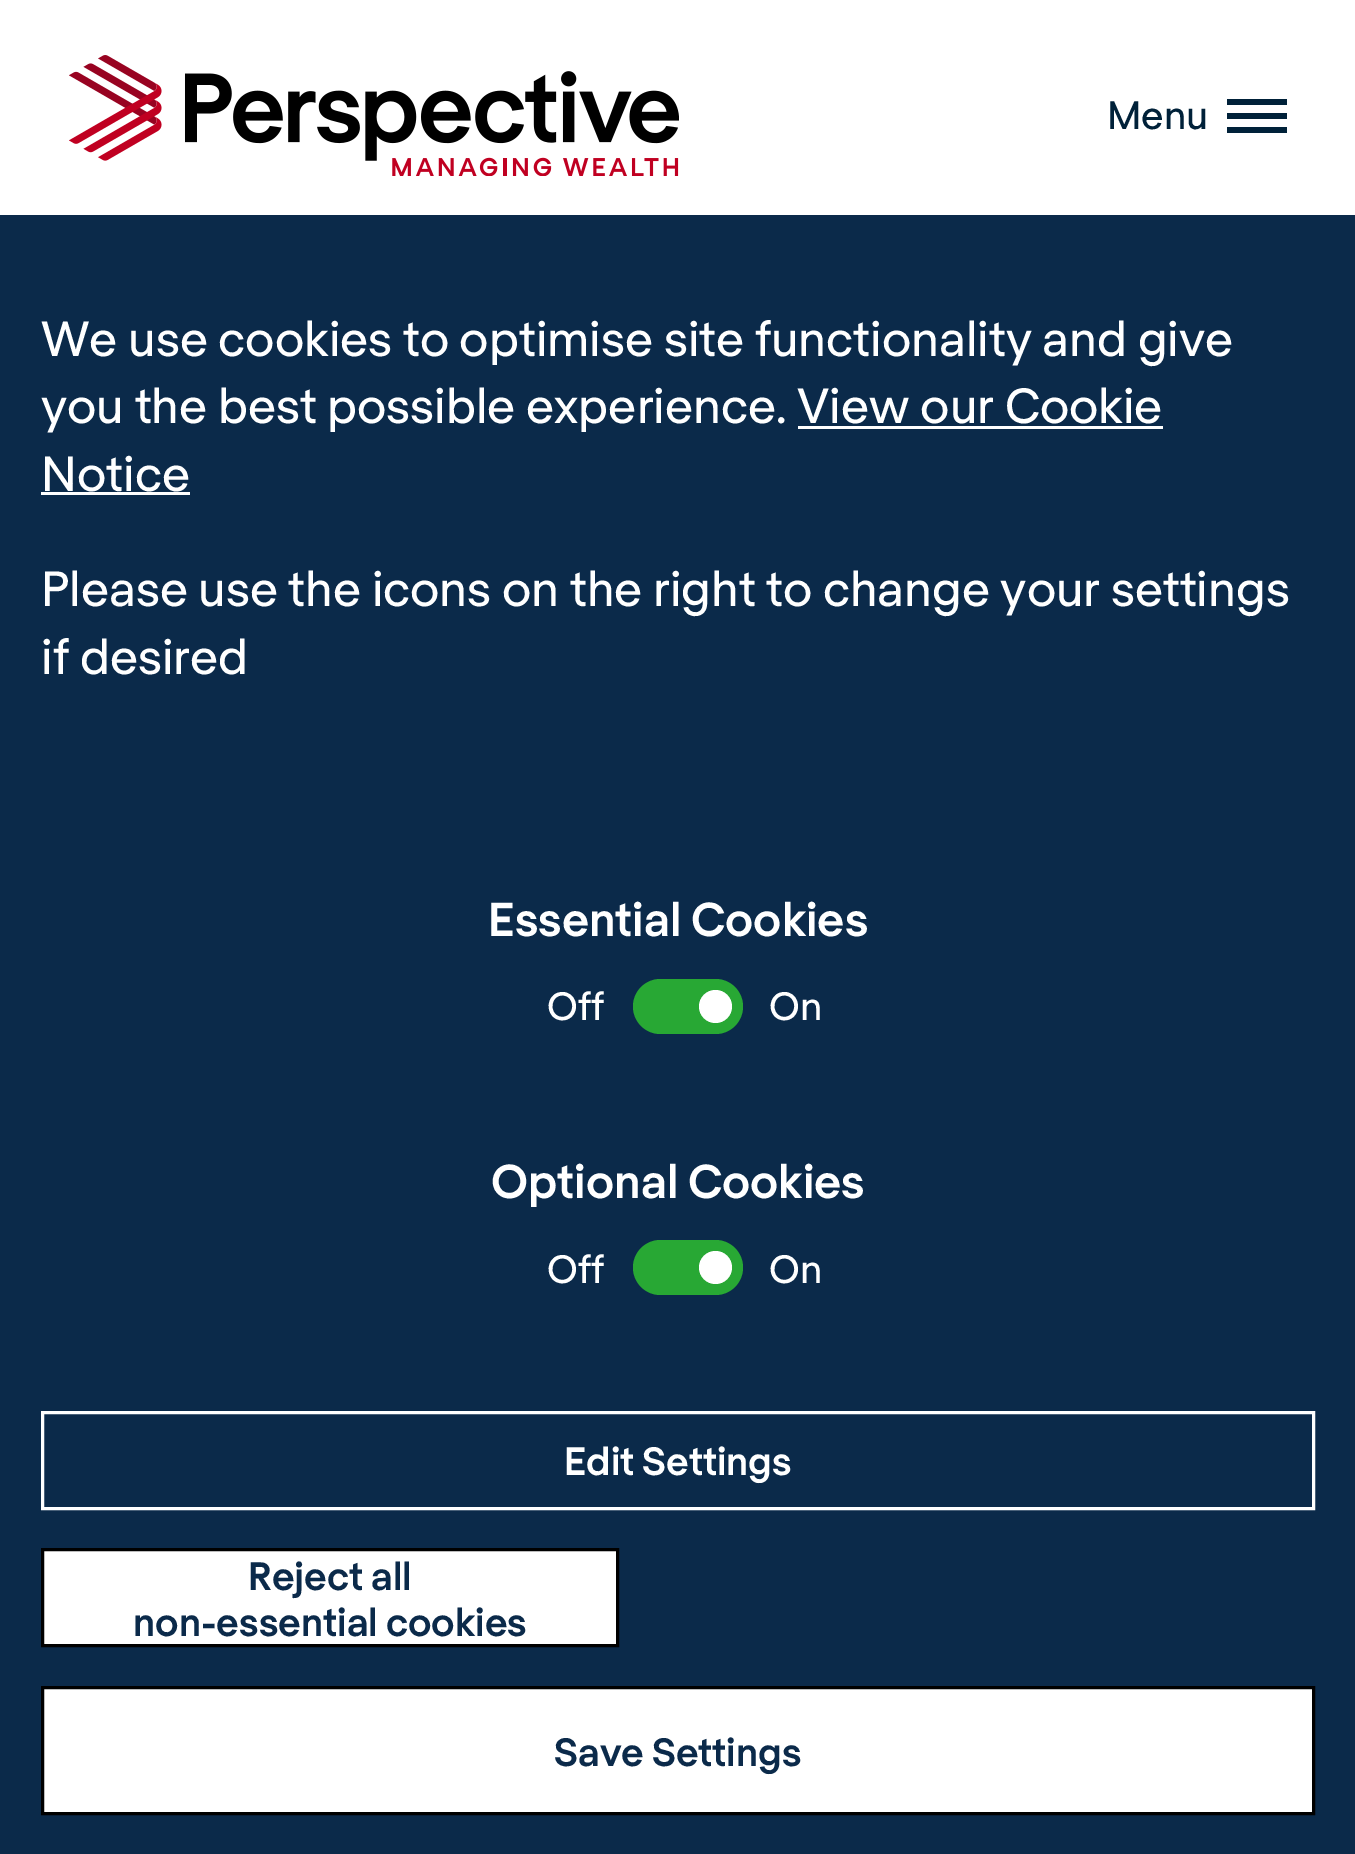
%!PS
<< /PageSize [1355 1854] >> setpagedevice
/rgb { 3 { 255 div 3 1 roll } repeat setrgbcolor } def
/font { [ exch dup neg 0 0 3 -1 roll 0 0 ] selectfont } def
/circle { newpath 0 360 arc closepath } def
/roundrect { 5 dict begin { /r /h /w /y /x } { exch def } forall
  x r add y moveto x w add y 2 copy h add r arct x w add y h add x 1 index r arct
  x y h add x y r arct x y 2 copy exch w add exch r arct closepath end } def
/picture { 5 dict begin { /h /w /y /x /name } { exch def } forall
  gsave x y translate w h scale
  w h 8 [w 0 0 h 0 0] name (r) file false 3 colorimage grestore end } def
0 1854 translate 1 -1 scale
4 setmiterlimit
255 255 255 rgb
0 0 1355 1854 rectfill
(img/1.rgb) 69 55 610 121 picture
[
  [1227 99 60 6 0 33 57]
  [1227 113 60 6 0 33 57]
  [1227 127 60 6 0 33 57]
  [0 215 1355 1639 11 42 74]
  [798 426 365 3 255 255 255]
  [41 492 149 3 255 255 255]
] { aload pop rgb rectfill } forall
40 168 52 rgb
633 979 110 55 27.5 roundrect fill
255 255 255 rgb
715.5 1006.5 16.5 circle fill
40 168 52 rgb
633 1240 110 55 27.5 roundrect fill
255 255 255 rgb
715.5 1267.5 16.5 circle fill
3 setlinewidth
42.5 1412.5 1271 96 rectstroke
42.5 1549.5 moveto 617.5 1549.5 lineto 617.5 1645.5 lineto 42.5 1645.5 lineto closepath gsave fill grestore
0 0 0 rgb
stroke
255 255 255 rgb
42.5 1687.5 moveto 1313.5 1687.5 lineto 1313.5 1813.5 lineto 42.5 1813.5 lineto closepath gsave fill grestore
0 0 0 rgb
stroke
/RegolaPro-Regular 38.5 font
0 33 57 rgb
1107 129 moveto (Menu) show
/RegolaPro-Regular 48.1 font
255 255 255 rgb
[
  [(We use cookies to optimise site functionality and give) 41 356]
  [(you the best possible experience. View our Cookie) 41 423]
  [(Notice) 41 491]
  [(Please use the icons on the right to change your settings) 41 606]
  [(if desired) 41 674]
] { aload pop moveto show } forall
/RegolaPro-Bold 46.25 font
488 936 moveto (Essential Cookies) show
/RegolaPro-Regular 38.5 font
547 1020 moveto (Off) show
769 1020 moveto (On) show
/RegolaPro-Bold 46.25 font
491 1198 moveto (Optional Cookies) show
/RegolaPro-Regular 38.5 font
547 1283 moveto (Off) show
769 1283 moveto (On) show
/RegolaPro-Bold 38.5 font
564 1475 moveto (Edit Settings) show
11 42 74 rgb
[
  [(Reject all) 248 1590]
  [(non-essential cookies) 133 1636]
  [(Save Settings) 554 1766]
] { aload pop moveto show } forall
showpage
